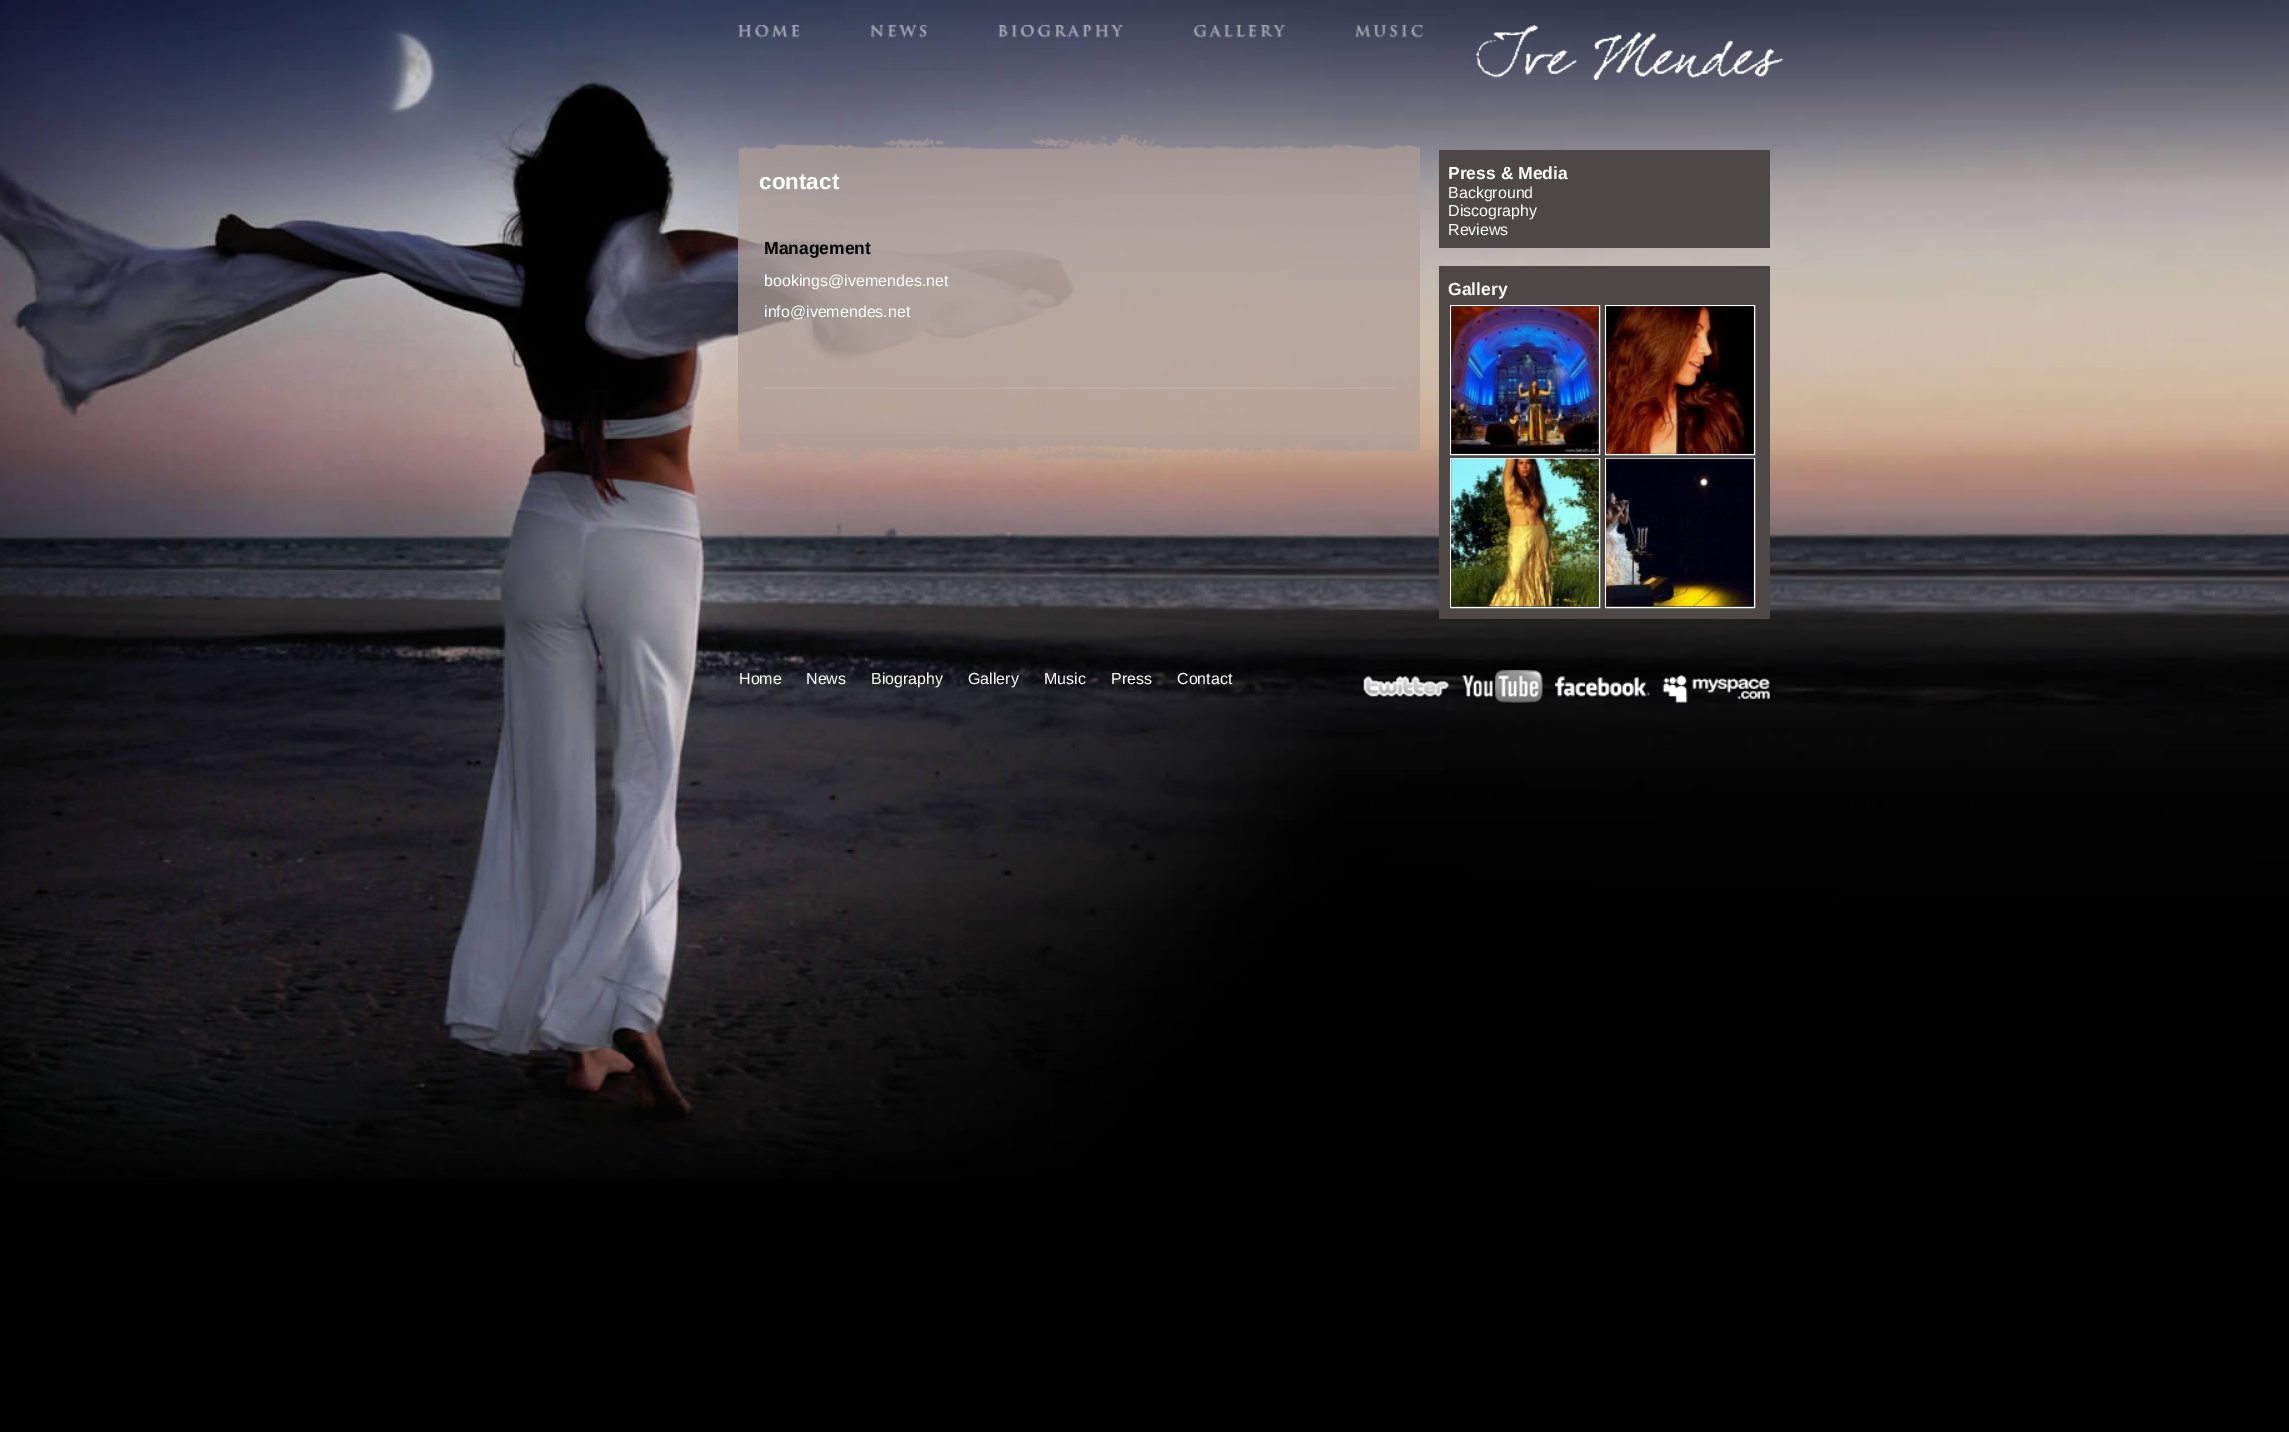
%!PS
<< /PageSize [2289 1432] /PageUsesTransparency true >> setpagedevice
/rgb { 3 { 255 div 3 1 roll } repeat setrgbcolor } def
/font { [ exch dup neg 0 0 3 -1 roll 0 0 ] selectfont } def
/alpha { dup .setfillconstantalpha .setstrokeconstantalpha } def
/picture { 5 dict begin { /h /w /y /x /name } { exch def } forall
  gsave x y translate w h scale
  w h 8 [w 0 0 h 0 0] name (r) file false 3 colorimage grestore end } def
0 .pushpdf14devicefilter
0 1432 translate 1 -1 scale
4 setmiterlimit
0 0 0 rgb
0 0 2289 1432 rectfill
(img/1.rgb) 0 0 2289 1179 picture
(img/2.rgb) 1476 25 307 55 picture
(img/3.rgb) 738 25 62 13 picture
(img/4.rgb) 871 25 56 13 picture
(img/5.rgb) 998 25 126 13 picture
(img/6.rgb) 1193 25 93 13 picture
(img/7.rgb) 1355 25 68 13 picture
(img/8.rgb) 738 131 682 64 picture
0.73 alpha
175 158 151 rgb
738 195 682 239 rectfill
1 alpha
(img/9.rgb) 764 387 631 2 picture
(img/10.rgb) 738 434 682 30 picture
77 71 70 rgb
1439 150 331 98 rectfill
1439 266 331 353 rectfill
255 255 255 rgb
1450.5 305.5 149 149 rectstroke
(img/11.rgb) 1451 306 148 148 picture
1605.5 305.5 149 149 rectstroke
(img/12.rgb) 1606 306 148 148 picture
1450.5 458.5 149 149 rectstroke
(img/13.rgb) 1451 458 148 149 picture
1605.5 458.5 149 149 rectstroke
(img/14.rgb) 1606 458 148 149 picture
(img/15.rgb) 1363 676 86 21 picture
(img/16.rgb) 1462 670 81 33 picture
(img/17.rgb) 1555 676 95 21 picture
(img/18.rgb) 1662 674 108 29 picture
/LiberationSans-Bold 22.5 font
759 189 moveto (contact) show
/LiberationSans-Bold 17.5 font
0 0 0 rgb
764 254 moveto (Management) show
/LiberationSans-Regular 16 font
255 255 255 rgb
764 286 moveto (bookings@ivemendes.net) show
764 317 moveto (info@ivemendes.net) show
/LiberationSans-Bold 17.5 font
1448 179 moveto (Press & Media) show
/LiberationSans-Regular 16 font
[
  [(Background) 1448 198]
  [(Discography) 1448 216]
  [(Reviews) 1448 235]
] { aload pop moveto show } forall
/LiberationSans-Bold 17.5 font
1448 295 moveto (Gallery) show
/LiberationSans-Regular 16 font
[
  [(Home) 739 684]
  [(News) 806 684]
  [(Biography) 871 684]
  [(Gallery) 968 684]
  [(Music) 1044 684]
  [(Press) 1111 684]
  [(Contact) 1177 684]
] { aload pop moveto show } forall
.poppdf14devicefilter showpage
